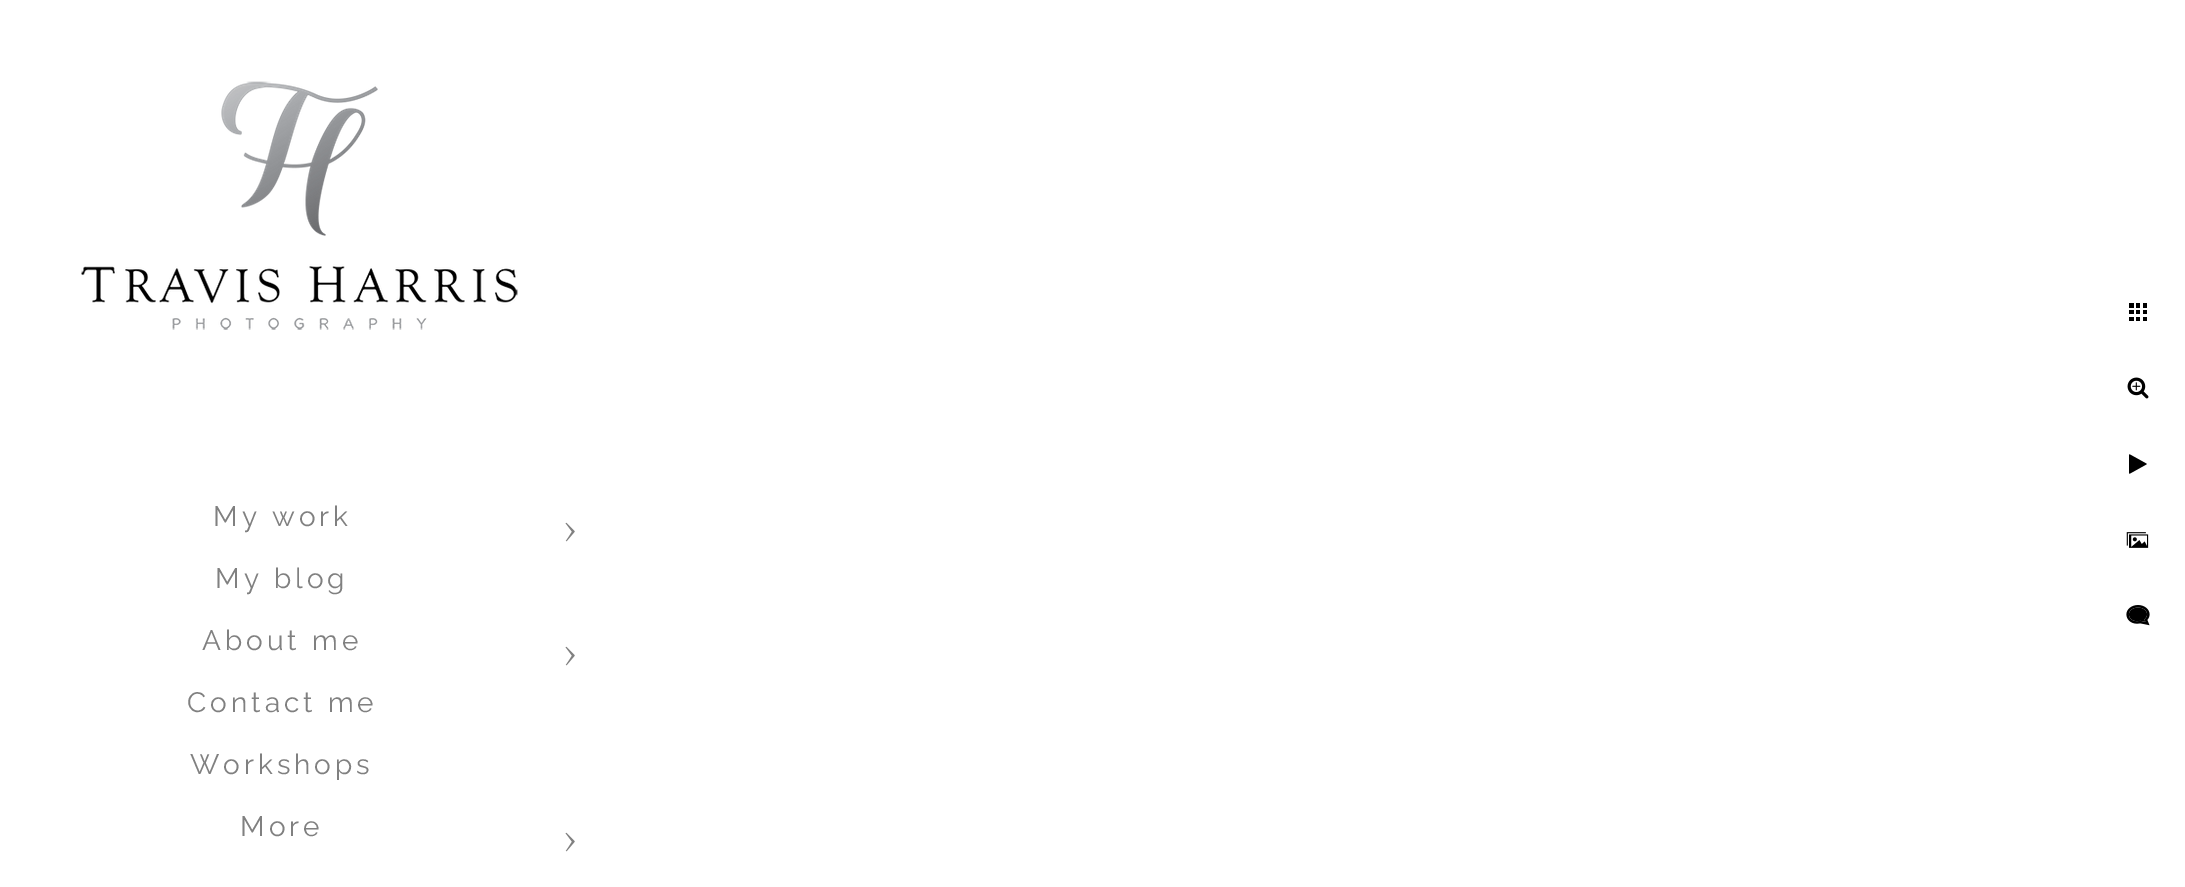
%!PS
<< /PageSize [2185 887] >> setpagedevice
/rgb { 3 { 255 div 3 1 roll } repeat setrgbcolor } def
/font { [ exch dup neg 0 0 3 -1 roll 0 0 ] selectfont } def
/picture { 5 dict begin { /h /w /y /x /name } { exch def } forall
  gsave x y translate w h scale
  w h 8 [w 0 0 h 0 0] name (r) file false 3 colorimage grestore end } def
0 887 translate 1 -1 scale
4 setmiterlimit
255 255 255 rgb
0 0 2185 887 rectfill
(img/1.rgb) 2129 303 18 18 picture
(img/2.rgb) 2127 377 22 22 picture
(img/3.rgb) 2129 454 18 20 picture
(img/4.rgb) 2126 532 23 16 picture
(img/5.rgb) 2126 605 24 21 picture
(img/6.rgb) 81 81 437 249 picture
(img/7.rgb) 565 522 10 20 picture
(img/7.rgb) 565 646 10 20 picture
(img/7.rgb) 565 832 10 20 picture
/Raleway-Thin 28 font
128 128 128 rgb
213 526 moveto 4 0 (My work) ashow
215 588 moveto 4 0 (My blog) ashow
202 650 moveto 4 0 (About me) ashow
187 712 moveto 4 0 (Contact me) ashow
190 774 moveto 4 0 (Workshops) ashow
240 836 moveto 4 0 (More) ashow
showpage
